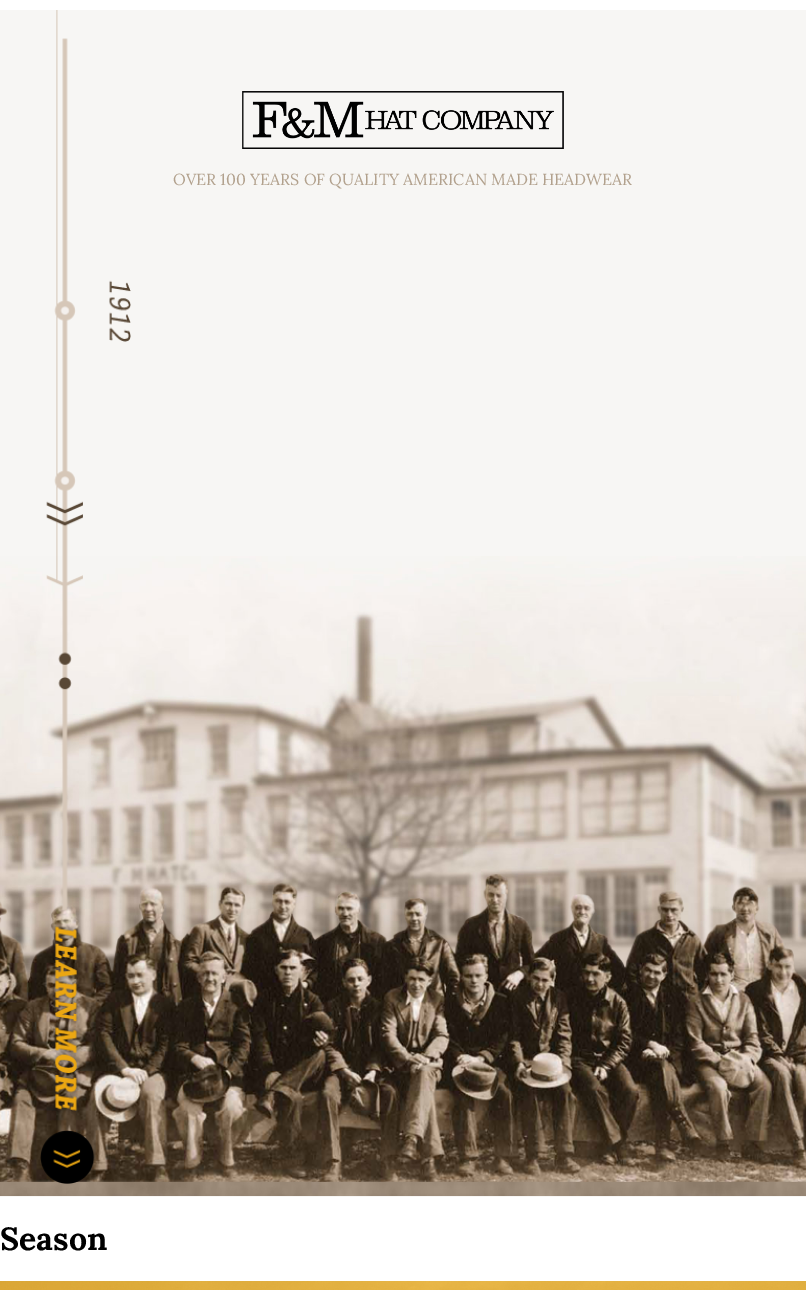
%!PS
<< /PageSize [806 1290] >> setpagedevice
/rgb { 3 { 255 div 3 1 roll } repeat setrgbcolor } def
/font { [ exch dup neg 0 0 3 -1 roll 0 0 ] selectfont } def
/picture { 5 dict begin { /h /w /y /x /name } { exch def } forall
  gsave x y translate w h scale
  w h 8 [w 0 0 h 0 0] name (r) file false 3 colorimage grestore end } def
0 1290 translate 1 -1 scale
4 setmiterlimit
255 255 255 rgb
0 0 806 1290 rectfill
247 246 244 rgb
0 10 806 1187 rectfill
(img/1.rgb) 0 556 806 640 picture
(img/3.rgb) 0 874 806 308 picture
(img/2.rgb) 40 10 91 1174 picture
(img/4.rgb) 242 91 322 58 picture
(img/5.rgb) 0 1281 806 9 picture
/Lora-Regular 16 font
178 161 141 rgb
173 185 moveto (OVER 100 YEARS OF QUALITY AMERICAN MADE HEADWEAR) show
/Lora-Bold 32 font
0 0 0 rgb
0 1250 moveto (Season) show
showpage
